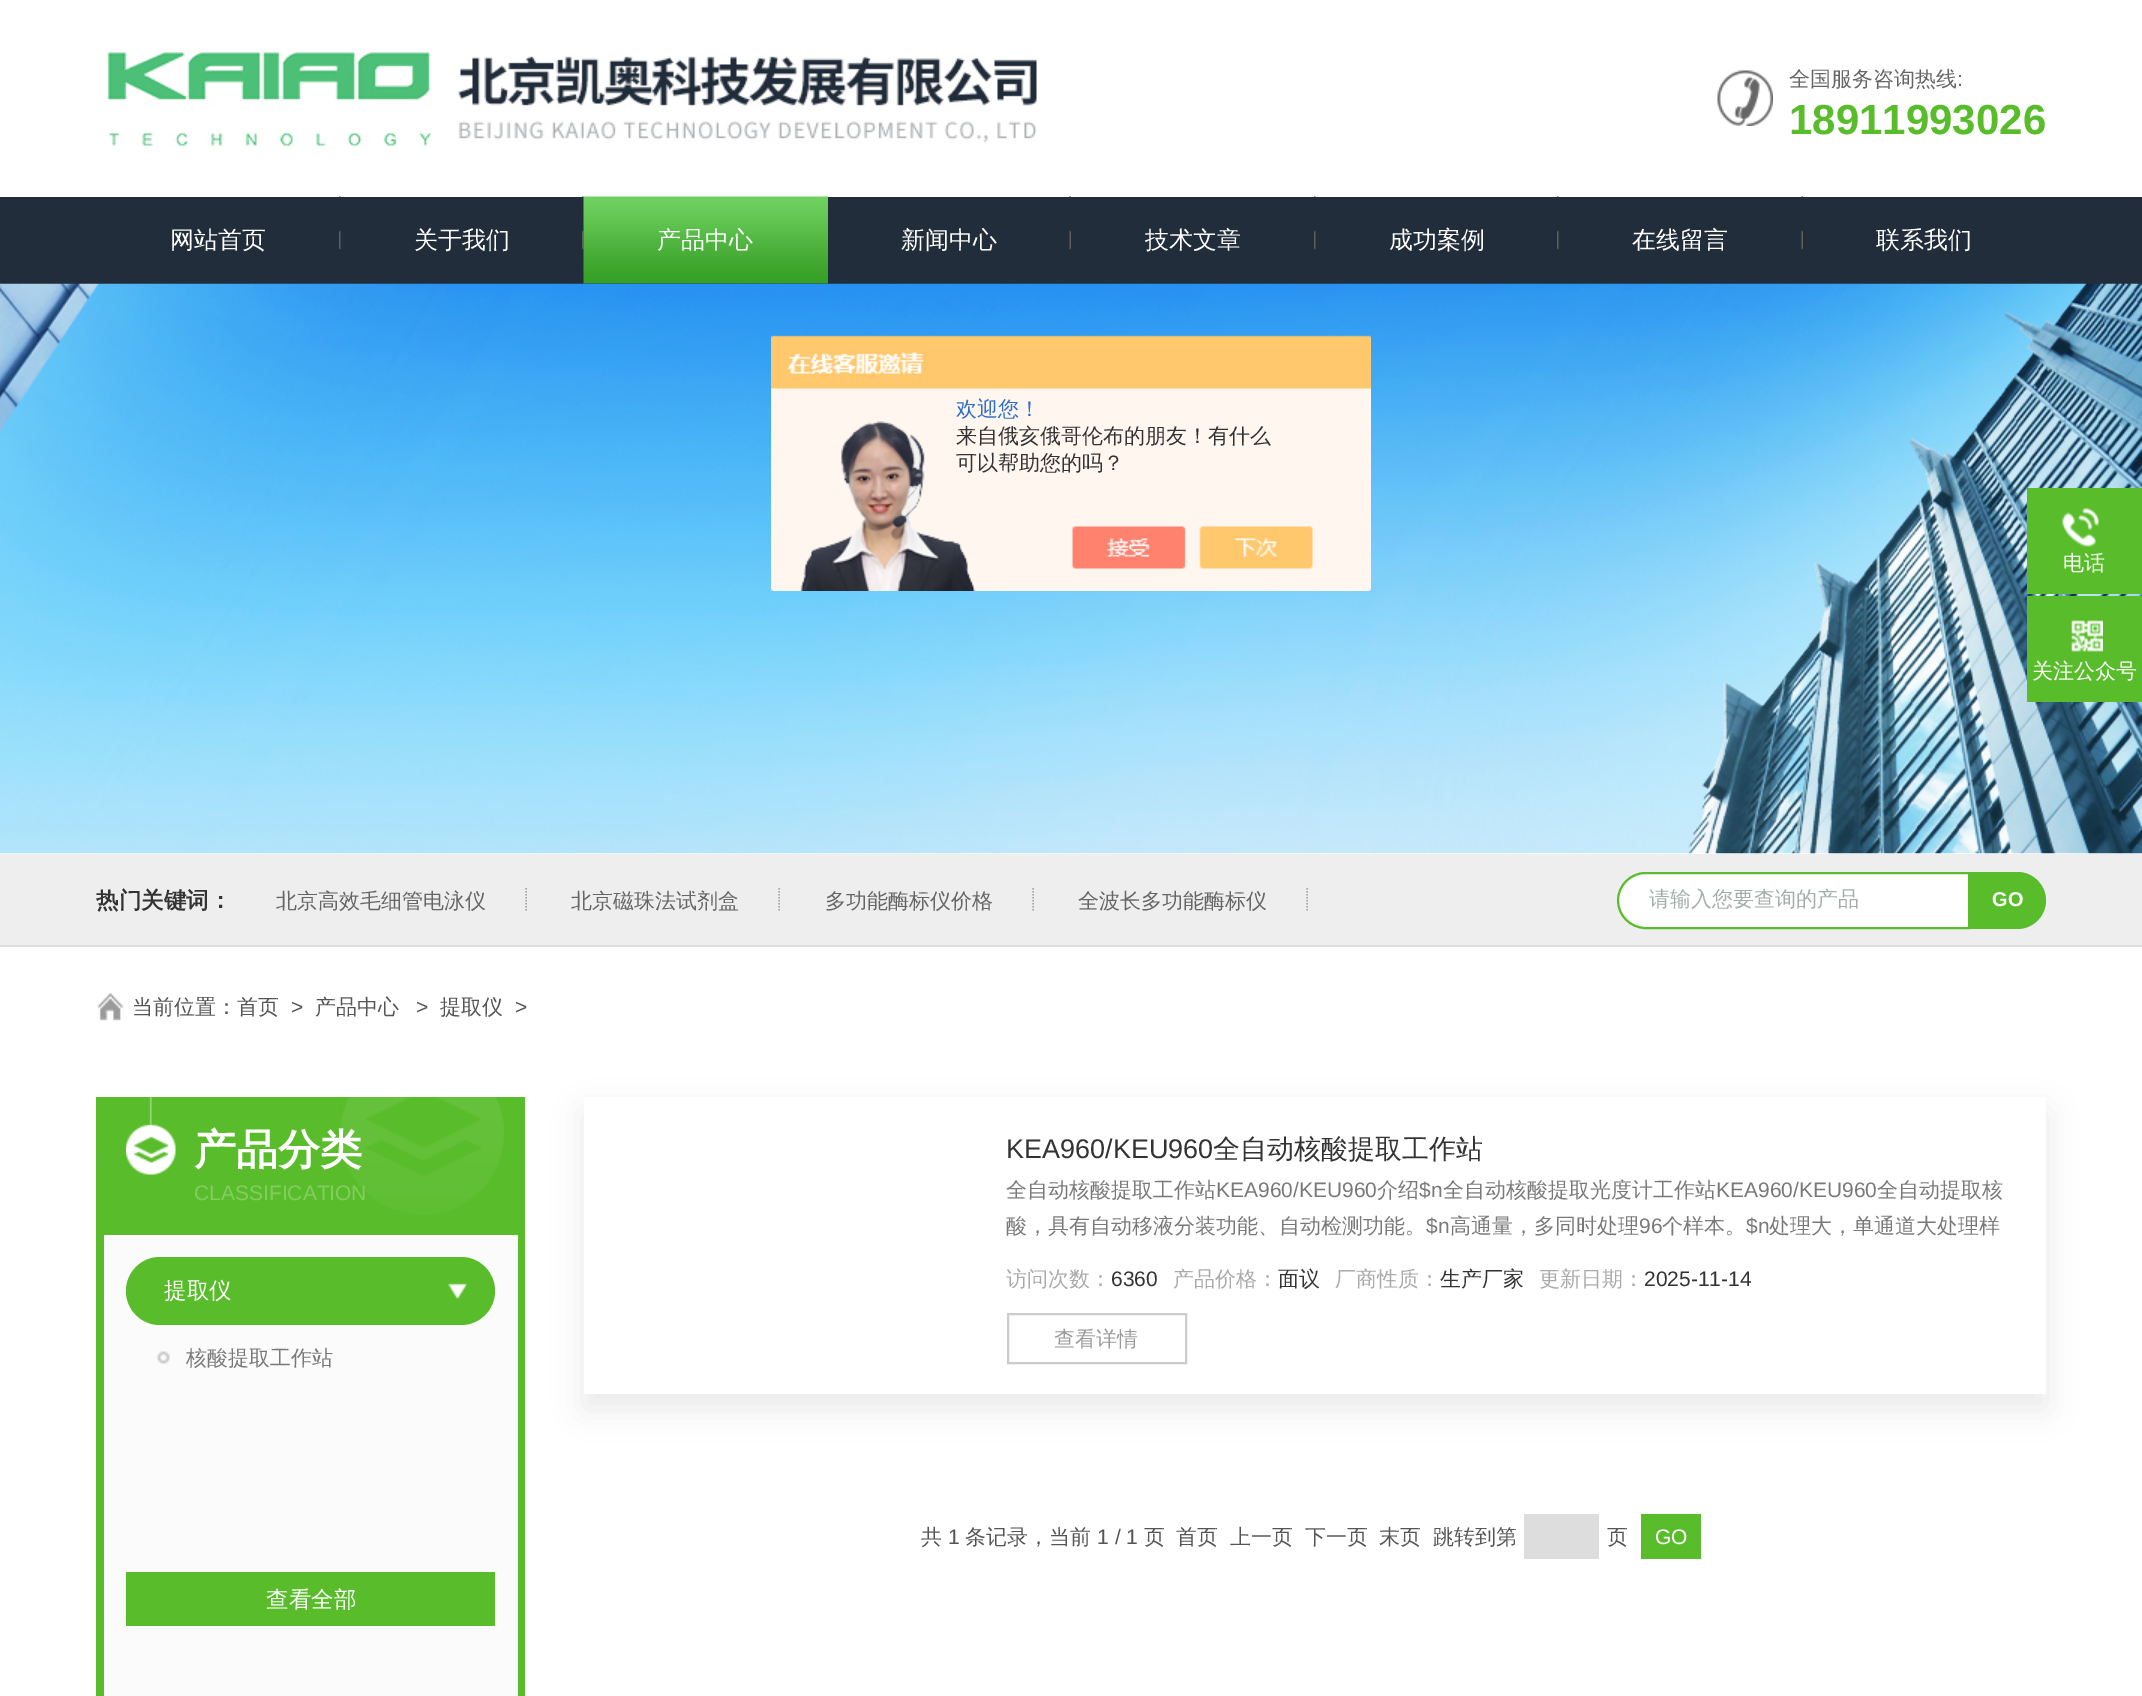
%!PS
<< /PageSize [2142 1696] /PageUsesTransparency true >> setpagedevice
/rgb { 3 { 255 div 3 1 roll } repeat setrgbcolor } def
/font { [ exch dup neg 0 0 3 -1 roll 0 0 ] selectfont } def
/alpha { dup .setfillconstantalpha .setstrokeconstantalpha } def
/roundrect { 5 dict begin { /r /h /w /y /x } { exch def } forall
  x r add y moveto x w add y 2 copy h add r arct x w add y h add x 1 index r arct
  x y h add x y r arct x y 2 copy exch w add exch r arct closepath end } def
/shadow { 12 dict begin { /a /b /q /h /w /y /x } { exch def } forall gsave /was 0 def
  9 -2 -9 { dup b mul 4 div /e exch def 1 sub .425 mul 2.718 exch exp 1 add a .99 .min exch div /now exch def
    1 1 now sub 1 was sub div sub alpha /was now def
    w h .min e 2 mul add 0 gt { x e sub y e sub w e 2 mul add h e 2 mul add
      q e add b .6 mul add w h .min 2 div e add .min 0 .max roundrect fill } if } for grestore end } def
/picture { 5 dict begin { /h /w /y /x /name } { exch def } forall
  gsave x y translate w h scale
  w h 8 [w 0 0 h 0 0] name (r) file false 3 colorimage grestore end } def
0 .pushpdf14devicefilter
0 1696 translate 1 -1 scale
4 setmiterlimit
255 255 255 rgb
0 0 2142 1696 rectfill
(img/1.rgb) 107 52 930 95 picture
(img/2.rgb) 1717 70 56 56 picture
33 45 58 rgb
0 197 2142 87 rectfill
(img/3.rgb) 339 196 2 54 picture
(img/3.rgb) 582 196 2 54 picture
(img/4.rgb) 583 196 245 88 picture
(img/5.rgb) 1069 196 2 54 picture
(img/3.rgb) 1314 196 2 54 picture
(img/3.rgb) 1557 196 2 54 picture
(img/5.rgb) 1801 196 2 54 picture
(img/6.rgb) 0 283 2142 571 picture
(img/7.rgb) 771 335 600 256 picture
89 188 43 rgb
2027 488 115 106 rectfill
(img/8.rgb) 2062 507 37 40 picture
2027 596 115 106 rectfill
(img/9.rgb) 2071 620 32 32 picture
238 238 238 rgb
0 854 2142 91 rectfill
222 222 222 rgb
0 945 2142 2 rectfill
164 164 164 rgb
1.5 setlinewidth
[1.5 1.5] 0 setdash
526 888 moveto 526 912 lineto stroke
779 888 moveto 779 912 lineto stroke
1033 888 moveto 1033 912 lineto stroke
1307 888 moveto 1307 912 lineto stroke
255 255 255 rgb
1645.5 873 moveto 1969 873 lineto 1969 928 lineto 1645.5 928 lineto 1630.5 928 1618 915.5 1618 900.5 curveto 1618 885.5 1630.5 873 1645.5 873 curveto closepath gsave fill grestore
89 188 43 rgb
2 setlinewidth
[] 0 setdash
stroke
1970 872 moveto 2017.5 872 lineto 2033 872 2046 885 2046 900.5 curveto 2046 916 2033 929 2017.5 929 curveto 1970 929 lineto closepath fill
(img/10.rgb) 97 992 27 29 picture
96 1097 429 138 rectfill
(img/11.rgb) 340 1097 164 118 picture
(img/12.rgb) 126 1097 50 78 picture
[
  [104 1235 414 461 251 251 251]
  [518 1235 7 461 89 188 43]
  [96 1235 8 461 89 188 43]
] { aload pop rgb rectfill } forall
126 1257 369 68 34 roundrect fill
(img/13.rgb) 448 1283 19 17 picture
(img/14.rgb) 157 1351 13 13 picture
126 1572 369 54 rectfill
0 0 0 rgb
584 1112 1462 297 0 15 0.08 shadow
255 255 255 rgb
584 1097 1462 297 rectfill
204 204 204 rgb
1008 1314 178 49 rectstroke
221 221 221 rgb
1524 1514 75 45 rectfill
89 188 43 rgb
1641 1514 60 45 rectfill
/WenQuanYiZenHei-Medium 21 font
102 102 102 rgb
1789 86 moveto (全国服务咨询热线) show
/LiberationSans-Regular 21 font
1957 86 moveto (:) show
/LiberationSans-Bold 42 font
89 188 43 rgb
1789 134 moveto (18911993026) show
/WenQuanYiZenHei-Medium 24 font
255 255 255 rgb
[
  [(网站首页) 170 248]
  [(关于我们) 414 248]
  [(产品中心) 657 248]
  [(新闻中心) 901 248]
  [(技术文章) 1145 248]
  [(成功案例) 1389 248]
  [(在线留言) 1632 248]
  [(联系我们) 1876 248]
] { aload pop moveto show } forall
/WenQuanYiZenHei-Medium 21 font
46 110 198 rgb
956 416 moveto (欢迎您！) show
51 51 51 rgb
956 443 moveto (来自俄亥俄哥伦布的朋友！有什么) show
956 470 moveto (可以帮助您的吗？) show
255 255 255 rgb
2063 570 moveto (电话) show
2032 678 moveto (关注公众号) show
/WenQuanYiZenHei-Bold 22.5 font
51 51 51 rgb
96 908 moveto (热门关键词：) show
/WenQuanYiZenHei-Medium 21 font
102 102 102 rgb
[
  [(北京高效毛细管电泳仪) 276 908]
  [(北京磁珠法试剂盒) 571 908]
  [(多功能酶标仪价格) 825 908]
  [(全波长多功能酶标仪) 1078 908]
] { aload pop moveto show } forall
164 173 169 rgb
1649 906 moveto (请输入您要查询的产品) show
/LiberationSans-Bold 20 font
255 255 255 rgb
1992 906 moveto (GO) show
/WenQuanYiZenHei-Medium 21 font
85 85 85 rgb
132 1014 moveto (当前位置：首页) show
/LiberationSans-Regular 21 font
291 1014 moveto (>) show
/WenQuanYiZenHei-Medium 21 font
315 1014 moveto (产品中心) show
/LiberationSans-Regular 21 font
416 1014 moveto (>) show
/WenQuanYiZenHei-Medium 21 font
440 1014 moveto (提取仪) show
/LiberationSans-Regular 21 font
515 1014 moveto (>) show
/WenQuanYiZenHei-Bold 42 font
255 255 255 rgb
194 1164 moveto (产品分类) show
/LiberationSans-Regular 21 font
131 205 96 rgb
194 1200 moveto (CLASSIFICATION) show
/WenQuanYiZenHei-Medium 22.5 font
255 255 255 rgb
164 1298 moveto (提取仪) show
/WenQuanYiZenHei-Medium 21 font
121 121 121 rgb
186 1365 moveto (核酸提取工作站) show
/WenQuanYiZenHei-Medium 22.5 font
255 255 255 rgb
266 1607 moveto (查看全部) show
/LiberationSans-Regular 27 font
51 51 51 rgb
1006 1158 moveto (KEA960/KEU960) show
/WenQuanYiZenHei-Medium 27 font
1213 1158 moveto (全自动核酸提取工作站) show
/WenQuanYiZenHei-Medium 21 font
121 121 121 rgb
1006 1197 moveto (全自动核酸提取工作站) show
/LiberationSans-Regular 21 font
1216 1197 moveto (KEA960/KEU960) show
/WenQuanYiZenHei-Medium 21 font
1377 1197 moveto (介绍) show
/LiberationSans-Regular 21 font
1419 1197 moveto ($n) show
/WenQuanYiZenHei-Medium 21 font
1443 1197 moveto (全自动核酸提取光度计工作站) show
/LiberationSans-Regular 21 font
1716 1197 moveto (KEA960/KEU960) show
/WenQuanYiZenHei-Medium 21 font
1877 1197 moveto (全自动提取核) show
1006 1233 moveto (酸，具有自动移液分装功能、自动检测功能。) show
/LiberationSans-Regular 21 font
1426 1233 moveto ($n) show
/WenQuanYiZenHei-Medium 21 font
1450 1233 moveto (高通量，多同时处理) show
/LiberationSans-Regular 21 font
1639 1233 moveto (96) show
/WenQuanYiZenHei-Medium 21 font
1662 1233 moveto (个样本。) show
/LiberationSans-Regular 21 font
1746 1233 moveto ($n) show
/WenQuanYiZenHei-Medium 21 font
1769 1233 moveto (处理大，单通道大处理样) show
170 170 170 rgb
1006 1286 moveto (访问次数：) show
/LiberationSans-Regular 21 font
51 51 51 rgb
1111 1286 moveto (6360) show
/WenQuanYiZenHei-Medium 21 font
170 170 170 rgb
1173 1286 moveto (产品价格：) show
51 51 51 rgb
1278 1286 moveto (面议) show
170 170 170 rgb
1335 1286 moveto (厂商性质：) show
51 51 51 rgb
1440 1286 moveto (生产厂家) show
170 170 170 rgb
1539 1286 moveto (更新日期：) show
/LiberationSans-Regular 21 font
51 51 51 rgb
1644 1286 moveto (2025-11-14) show
/WenQuanYiZenHei-Medium 21 font
153 153 153 rgb
1054 1346 moveto (查看详情) show
85 85 85 rgb
921 1544 moveto (共) show
/LiberationSans-Regular 21 font
948 1544 moveto (1) show
/WenQuanYiZenHei-Medium 21 font
965 1544 moveto (条记录，当前) show
/LiberationSans-Regular 21 font
1097 1544 moveto (1 / 1) show
/WenQuanYiZenHei-Medium 21 font
[
  [(页) 1144 1544]
  [(首页) 1176 1544]
  [(上一页) 1230 1544]
  [(下一页) 1305 1544]
  [(末页) 1379 1544]
  [(跳转到第) 1433 1544]
  [(页) 1607 1544]
] { aload pop moveto show } forall
/LiberationSans-Regular 21 font
255 255 255 rgb
1655 1544 moveto (GO) show
.poppdf14devicefilter showpage
